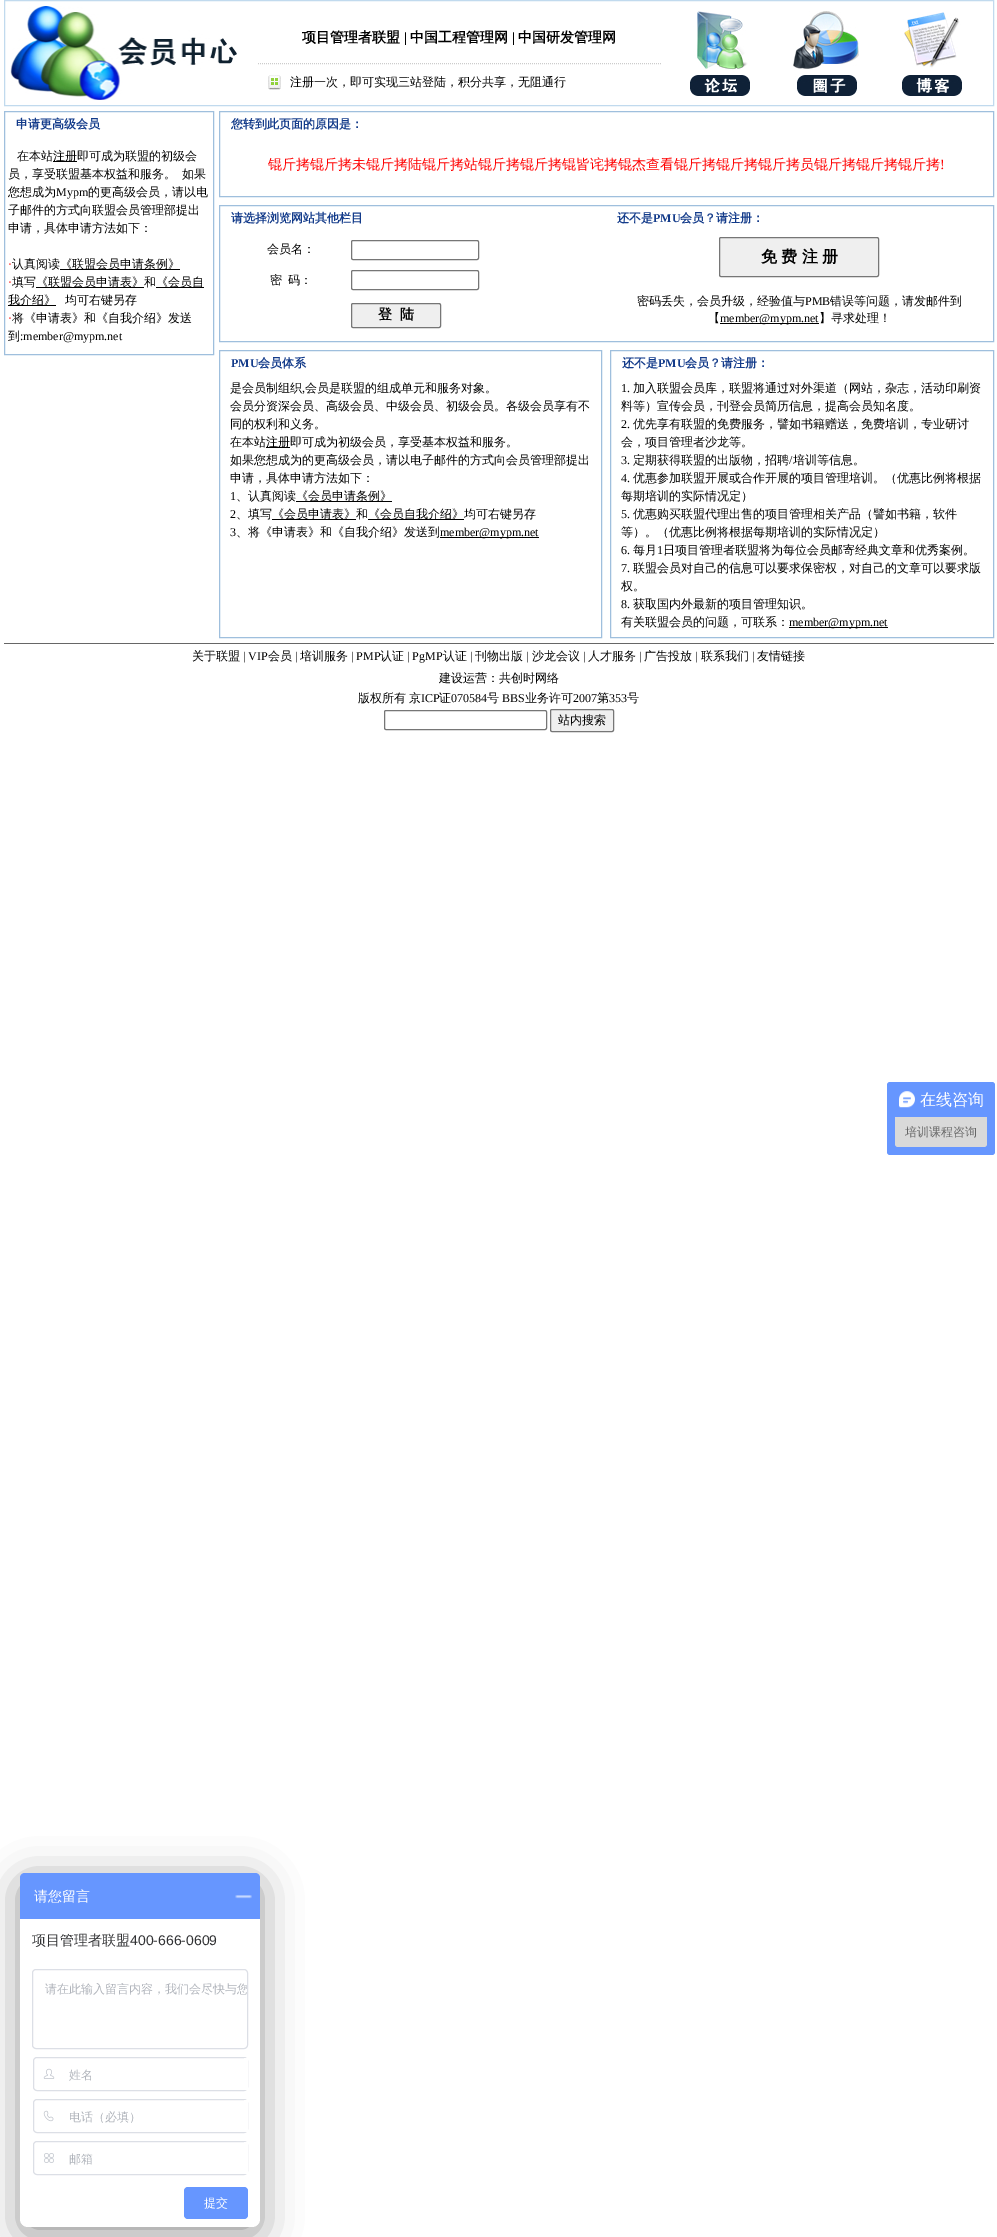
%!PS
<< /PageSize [997 2237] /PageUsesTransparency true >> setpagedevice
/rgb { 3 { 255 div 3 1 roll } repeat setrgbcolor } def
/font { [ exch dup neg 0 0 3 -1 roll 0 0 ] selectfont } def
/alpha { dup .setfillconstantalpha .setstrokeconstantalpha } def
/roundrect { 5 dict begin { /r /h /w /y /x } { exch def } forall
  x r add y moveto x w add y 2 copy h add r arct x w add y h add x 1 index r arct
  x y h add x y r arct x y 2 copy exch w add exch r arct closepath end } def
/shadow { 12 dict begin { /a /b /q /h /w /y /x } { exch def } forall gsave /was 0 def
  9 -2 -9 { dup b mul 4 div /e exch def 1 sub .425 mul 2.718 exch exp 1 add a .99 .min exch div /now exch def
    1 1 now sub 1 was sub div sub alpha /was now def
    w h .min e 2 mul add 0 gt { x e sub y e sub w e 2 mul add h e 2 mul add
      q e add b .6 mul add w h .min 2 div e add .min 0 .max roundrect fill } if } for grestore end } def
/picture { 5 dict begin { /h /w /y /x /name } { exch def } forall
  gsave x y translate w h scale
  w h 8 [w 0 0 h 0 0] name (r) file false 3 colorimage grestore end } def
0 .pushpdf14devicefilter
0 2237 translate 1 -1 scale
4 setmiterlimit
255 255 255 rgb
0 0 997 2237 rectfill
193 218 238 rgb
4.5 0.5 989 105 rectstroke
(img/1.rgb) 10 6 227 94 picture
204 204 204 rgb
[1 1] 0 setdash
258 63.5 moveto 661 63.5 lineto stroke
(img/2.rgb) 268 75 13 15 picture
(img/3.rgb) 690 11 60 85 picture
(img/4.rgb) 793 11 66 85 picture
(img/5.rgb) 902 12 60 84 picture
159 191 221 rgb
[] 0 setdash
4.5 111.5 209 243 rectstroke
[
  [53 161 24 1 0 0 0]
  [60 269 120 1 0 0 0]
  [36 287 108 1 0 0 0]
  [156 287 48 1 0 0 0]
  [8 305 48 1 0 0 0]
] { aload pop rgb rectfill } forall
159 191 221 rgb
219.5 111.5 774 85 rectstroke
219.5 205.5 774 136 rectstroke
118 118 118 rgb
351.5 240.5 127 19 1.5 roundrect stroke
351.5 270.5 127 19 1.5 roundrect stroke
239 239 239 rgb
351.5 303.5 89 24 1.5 roundrect gsave fill grestore
118 118 118 rgb
stroke
239 239 239 rgb
719.5 237.5 159 39 1.5 roundrect gsave fill grestore
118 118 118 rgb
stroke
0 0 0 rgb
720 323 99 1 rectfill
159 191 221 rgb
219.5 350.5 382 287 rectstroke
[
  [266 447 24 1 0 0 0]
  [296 501 96 1 0 0 0]
  [272 519 84 1 0 0 0]
  [368 519 96 1 0 0 0]
  [440 537 99 1 0 0 0]
] { aload pop rgb rectfill } forall
159 191 221 rgb
610.5 350.5 383 287 rectstroke
0 0 0 rgb
789 627 99 1 rectfill
102 102 102 rgb
4 643 990 1 rectfill
118 118 118 rgb
384.5 710.5 162 19 1.5 roundrect stroke
239 239 239 rgb
550.5 709.5 63 22 1.5 roundrect gsave fill grestore
118 118 118 rgb
stroke
102 150 255 rgb
887 1082 108 73 3 roundrect fill
(img/6.rgb) 899 1091 16 17 picture
217 217 217 rgb
895 1117 moveto 987 1117 lineto 987 1144 lineto 987 1145.5 985.5 1147 984 1147 curveto 898 1147 lineto 896.5 1147 895 1145.5 895 1144 curveto closepath fill
0 0 0 rgb
20 1881 240 354 8 20 0.4 shadow
255 255 255 rgb
20 1873 240 354 8 roundrect fill
102 150 255 rgb
25 1873 moveto 255 1873 lineto 258 1873 260 1875 260 1878 curveto 260 1919 lineto 20 1919 lineto 20 1878 lineto 20 1875 22 1873 25 1873 curveto closepath fill
(img/7.rgb) 235 1895 17 4 picture
220 223 230 rgb
32.5 1969.5 215 79 3.5 roundrect stroke
33.5 2057.5 214 33 3.5 roundrect stroke
(img/8.rgb) 43 2068 12 11 picture
255 255 255 rgb
244 2058 4 32 rectfill
220 223 230 rgb
33.5 2099.5 214 33 3.5 roundrect stroke
(img/9.rgb) 43 2110 11 12 picture
255 255 255 rgb
244 2100 4 32 rectfill
220 223 230 rgb
33.5 2141.5 214 33 3.5 roundrect stroke
(img/10.rgb) 44 2153 10 10 picture
255 255 255 rgb
244 2142 4 32 rectfill
102 150 255 rgb
184 2187 64 32 4 roundrect fill
/WenQuanYiZenHei-Bold 14 font
0 0 0 rgb
302 42 moveto (项目管理者联盟) show
/LiberationSerif-Bold 14 font
404 42 moveto (|) show
/WenQuanYiZenHei-Bold 14 font
410 42 moveto (中国工程管理网) show
/LiberationSerif-Bold 14 font
512 42 moveto (|) show
/WenQuanYiZenHei-Bold 14 font
518 42 moveto (中国研发管理网) show
/WenQuanYiZenHei-Medium 12 font
290 86 moveto (注册一次，即可实现三站登陆，积分共享，无阻通行) show
/WenQuanYiZenHei-Bold 12 font
19 59 138 rgb
16 128 moveto (申请更高级会员) show
/WenQuanYiZenHei-Medium 12 font
0 0 0 rgb
[
  [(在本站) 17 160]
  [(注册即可成为联盟的初级会) 53 160]
  [(员，享受联盟基本权益和服务。) 8 178]
  [(如果) 182 178]
  [(您想成为) 8 196]
] { aload pop moveto show } forall
/LiberationSerif-Regular 12 font
56 196 moveto (Mypm) show
/WenQuanYiZenHei-Medium 12 font
[
  [(的更高级会员，请以电) 88 196]
  [(子邮件的方式向联盟会员管理部提出) 8 214]
  [(申请，具体申请方法如下：) 8 232]
] { aload pop moveto show } forall
/LiberationSerif-Regular 12 font
255 0 0 rgb
8 268 moveto (·) show
/WenQuanYiZenHei-Medium 12 font
0 0 0 rgb
12 268 moveto (认真阅读) show
60 268 moveto (《联盟会员申请条例》) show
/LiberationSerif-Regular 12 font
255 0 0 rgb
8 286 moveto (·) show
/WenQuanYiZenHei-Medium 12 font
0 0 0 rgb
[
  [(填写) 12 286]
  [(《联盟会员申请表》和) 36 286]
  [(《会员自) 156 286]
  [(我介绍》) 8 304]
  [(均可右键另存) 65 304]
] { aload pop moveto show } forall
/LiberationSerif-Regular 12 font
255 0 0 rgb
8 322 moveto (·) show
/WenQuanYiZenHei-Medium 12 font
0 0 0 rgb
12 322 moveto (将《申请表》和《自我介绍》发送) show
8 340 moveto (到) show
/LiberationSerif-Regular 12 font
20 340 moveto (:member@mypm.net) show
/WenQuanYiZenHei-Bold 12 font
19 59 138 rgb
231 128 moveto (您转到此页面的原因是：) show
/WenQuanYiZenHei-Medium 14 font
255 0 0 rgb
268 169 moveto (锟斤拷锟斤拷未锟斤拷陆锟斤拷站锟斤拷锟斤拷锟皆诧拷锟杰查看锟斤拷锟斤拷锟斤拷员锟斤拷锟斤拷锟斤拷) show
/LiberationSerif-Regular 14 font
940 169 moveto (!) show
/WenQuanYiZenHei-Bold 12 font
19 59 138 rgb
231 222 moveto (请选择浏览网站其他栏目) show
/WenQuanYiZenHei-Medium 12 font
0 0 0 rgb
[
  [(会员名：) 267 253]
  [(密) 270 284]
  [(码：) 288 284]
] { aload pop moveto show } forall
/WenQuanYiZenHei-Bold 14 font
378 319 moveto (登  陆) show
/WenQuanYiZenHei-Bold 12 font
19 59 138 rgb
617 222 moveto (还不是) show
/LiberationSerif-Bold 12 font
653 222 moveto (PMU) show
/WenQuanYiZenHei-Bold 12 font
680 222 moveto (会员？请注册：) show
/WenQuanYiZenHei-Bold 16 font
0 0 0 rgb
761 262 moveto -0.5 0 32 (免 费 注 册) widthshow
/WenQuanYiZenHei-Medium 12 font
637 305 moveto (密码丢失，会员升级，经验值与) show
/LiberationSerif-Regular 12 font
805 305 moveto (PMB) show
/WenQuanYiZenHei-Medium 12 font
830 305 moveto (错误等问题，请发邮件到) show
708 322 moveto (【) show
/LiberationSerif-Regular 12 font
720 322 moveto (member@mypm.net) show
/WenQuanYiZenHei-Medium 12 font
819 322 moveto (】寻求处理！) show
/LiberationSerif-Bold 12 font
19 59 138 rgb
231 367 moveto (PMU) show
/WenQuanYiZenHei-Bold 12 font
258 367 moveto (会员体系) show
/WenQuanYiZenHei-Medium 12 font
0 0 0 rgb
230 392 moveto (是会员制组织) show
/LiberationSerif-Regular 12 font
302 392 moveto (,) show
/WenQuanYiZenHei-Medium 12 font
[
  [(会员是联盟的组成单元和服务对象。) 305 392]
  [(会员分资深会员、高级会员、中级会员、初级会员。各级会员享有不) 230 410]
  [(同的权利和义务。) 230 428]
  [(在本站) 230 446]
  [(注册即可成为初级会员，享受基本权益和服务。) 266 446]
  [(如果您想成为的更高级会员，请以电子邮件的方式向会员管理部提出) 230 464]
  [(申请，具体申请方法如下：) 230 482]
] { aload pop moveto show } forall
/LiberationSerif-Regular 12 font
230 500 moveto (1) show
/WenQuanYiZenHei-Medium 12 font
236 500 moveto (、认真阅读) show
296 500 moveto (《会员申请条例》) show
/LiberationSerif-Regular 12 font
230 518 moveto (2) show
/WenQuanYiZenHei-Medium 12 font
[
  [(、填写) 236 518]
  [(《会员申请表》和) 272 518]
  [(《会员自我介绍》均可右键另存) 368 518]
] { aload pop moveto show } forall
/LiberationSerif-Regular 12 font
230 536 moveto (3) show
/WenQuanYiZenHei-Medium 12 font
236 536 moveto (、将《申请表》和《自我介绍》发送到) show
/LiberationSerif-Regular 12 font
440 536 moveto (member@mypm.net) show
/WenQuanYiZenHei-Bold 12 font
19 59 138 rgb
622 367 moveto (还不是) show
/LiberationSerif-Bold 12 font
658 367 moveto (PMU) show
/WenQuanYiZenHei-Bold 12 font
685 367 moveto (会员？请注册：) show
/LiberationSerif-Regular 12 font
0 0 0 rgb
621 392 moveto (1.) show
/WenQuanYiZenHei-Medium 12 font
633 392 moveto (加入联盟会员库，联盟将通过对外渠道（网站，杂志，活动印刷资) show
621 410 moveto (料等）宣传会员，刊登会员简历信息，提高会员知名度。) show
/LiberationSerif-Regular 12 font
621 428 moveto (2.) show
/WenQuanYiZenHei-Medium 12 font
633 428 moveto (优先享有联盟的免费服务，譬如书籍赠送，免费培训，专业研讨) show
621 446 moveto (会，项目管理者沙龙等。) show
/LiberationSerif-Regular 12 font
621 464 moveto (3.) show
/WenQuanYiZenHei-Medium 12 font
633 464 moveto (定期获得联盟的出版物，招聘) show
/LiberationSerif-Regular 12 font
789 464 moveto (/) show
/WenQuanYiZenHei-Medium 12 font
793 464 moveto (培训等信息。) show
/LiberationSerif-Regular 12 font
621 482 moveto (4.) show
/WenQuanYiZenHei-Medium 12 font
633 482 moveto (优惠参加联盟开展或合作开展的项目管理培训。（优惠比例将根据) show
621 500 moveto (每期培训的实际情况定）) show
/LiberationSerif-Regular 12 font
621 518 moveto (5.) show
/WenQuanYiZenHei-Medium 12 font
633 518 moveto (优惠购买联盟代理出售的项目管理相关产品（譬如书籍，软件) show
621 536 moveto (等）。（优惠比例将根据每期培训的实际情况定）) show
/LiberationSerif-Regular 12 font
621 554 moveto (6.) show
/WenQuanYiZenHei-Medium 12 font
633 554 moveto (每月) show
/LiberationSerif-Regular 12 font
657 554 moveto (1) show
/WenQuanYiZenHei-Medium 12 font
663 554 moveto (日项目管理者联盟将为每位会员邮寄经典文章和优秀案例。) show
/LiberationSerif-Regular 12 font
621 572 moveto (7.) show
/WenQuanYiZenHei-Medium 12 font
633 572 moveto (联盟会员对自己的信息可以要求保密权，对自己的文章可以要求版) show
621 590 moveto (权。) show
/LiberationSerif-Regular 12 font
621 608 moveto (8.) show
/WenQuanYiZenHei-Medium 12 font
633 608 moveto (获取国内外最新的项目管理知识。) show
621 626 moveto (有关联盟会员的问题，可联系：) show
/LiberationSerif-Regular 12 font
789 626 moveto (member@mypm.net) show
/WenQuanYiZenHei-Medium 12 font
192 660 moveto (关于联盟) show
/LiberationSerif-Regular 12 font
243 660 moveto (| VIP) show
/WenQuanYiZenHei-Medium 12 font
268 660 moveto (会员) show
/LiberationSerif-Regular 12 font
295 660 moveto (|) show
/WenQuanYiZenHei-Medium 12 font
300 660 moveto (培训服务) show
/LiberationSerif-Regular 12 font
351 660 moveto (| PMP) show
/WenQuanYiZenHei-Medium 12 font
380 660 moveto (认证) show
/LiberationSerif-Regular 12 font
407 660 moveto (| PgMP) show
/WenQuanYiZenHei-Medium 12 font
443 660 moveto (认证) show
/LiberationSerif-Regular 12 font
470 660 moveto (|) show
/WenQuanYiZenHei-Medium 12 font
475 660 moveto (刊物出版) show
/LiberationSerif-Regular 12 font
526 660 moveto (|) show
/WenQuanYiZenHei-Medium 12 font
532 660 moveto (沙龙会议) show
/LiberationSerif-Regular 12 font
583 660 moveto (|) show
/WenQuanYiZenHei-Medium 12 font
588 660 moveto (人才服务) show
/LiberationSerif-Regular 12 font
639 660 moveto (|) show
/WenQuanYiZenHei-Medium 12 font
644 660 moveto (广告投放) show
/LiberationSerif-Regular 12 font
695 660 moveto (|) show
/WenQuanYiZenHei-Medium 12 font
701 660 moveto (联系我们) show
/LiberationSerif-Regular 12 font
752 660 moveto (|) show
/WenQuanYiZenHei-Medium 12 font
757 660 moveto (友情链接) show
439 682 moveto (建设运营：共创时网络) show
358 702 moveto -1 0 32 (版权所有 京) widthshow
/LiberationSerif-Regular 12 font
421 702 moveto (ICP) show
/WenQuanYiZenHei-Medium 12 font
439 702 moveto (证) show
/LiberationSerif-Regular 12 font
451 702 moveto (070584) show
/WenQuanYiZenHei-Medium 12 font
487 702 moveto (号) show
/LiberationSerif-Regular 12 font
502 702 moveto (BBS) show
/WenQuanYiZenHei-Medium 12 font
525 702 moveto (业务许可) show
/LiberationSerif-Regular 12 font
573 702 moveto (2007) show
/WenQuanYiZenHei-Medium 12 font
597 702 moveto (第) show
/LiberationSerif-Regular 12 font
609 702 moveto (353) show
/WenQuanYiZenHei-Medium 12 font
627 702 moveto (号) show
558 724 moveto (站内搜索) show
/WenQuanYiZenHei-Medium 16 font
255 255 255 rgb
920 1105 moveto (在线咨询) show
/WenQuanYiZenHei-Medium 12 font
102 102 102 rgb
905 1136 moveto (培训课程咨询) show
/WenQuanYiZenHei-Medium 14 font
255 255 255 rgb
34 1901 moveto (请您留言) show
48 49 51 rgb
32 1945 moveto (项目管理者联盟) show
/LiberationSans-Regular 14 font
130 1945 moveto (400-666-0609) show
gsave
33 1970 214 78 3 roundrect clip newpath
/WenQuanYiZenHei-Medium 12 font
176 180 187 rgb
45 1993 moveto (请在此输入留言内容，我们会尽快与您) show
grestore
/WenQuanYiZenHei-Medium 12 font
176 180 187 rgb
[
  [(姓名) 69 2079]
  [(电话（必填）) 69 2121]
  [(邮箱) 69 2163]
] { aload pop moveto show } forall
255 255 255 rgb
204 2207 moveto (提交) show
.poppdf14devicefilter showpage
